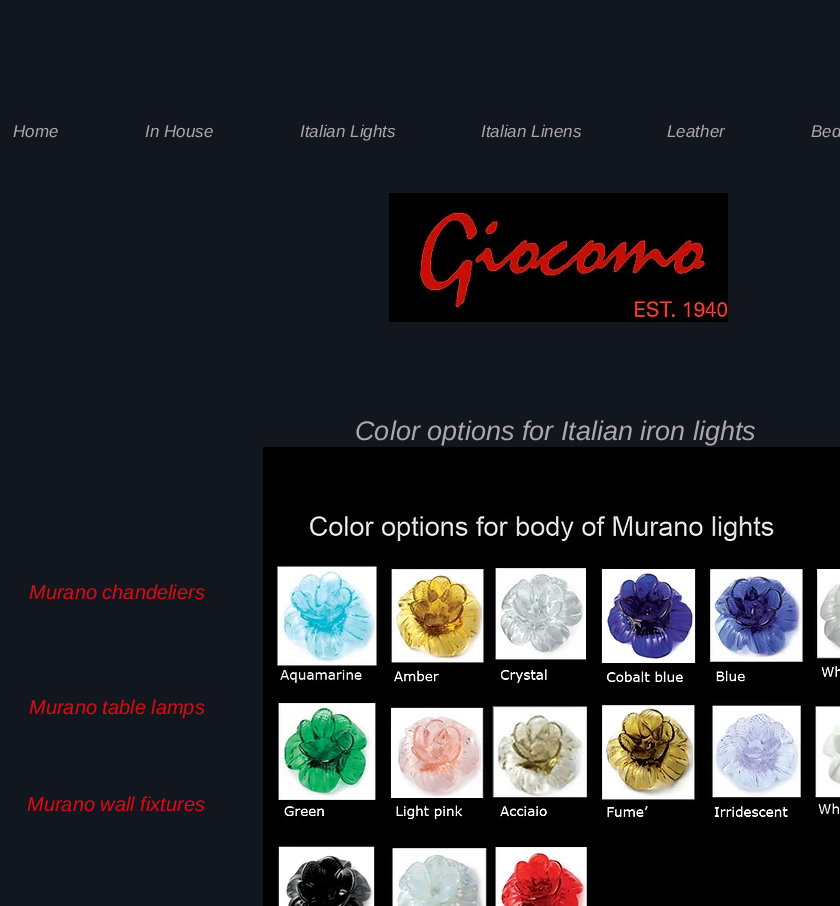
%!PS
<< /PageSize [840 906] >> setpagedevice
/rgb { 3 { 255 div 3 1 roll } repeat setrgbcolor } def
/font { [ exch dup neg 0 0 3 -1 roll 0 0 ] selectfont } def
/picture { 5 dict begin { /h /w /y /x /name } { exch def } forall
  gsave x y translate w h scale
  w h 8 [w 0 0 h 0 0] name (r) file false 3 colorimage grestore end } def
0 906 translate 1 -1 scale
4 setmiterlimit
18 22 31 rgb
0 0 840 906 rectfill
(img/1.rgb) 389 193 339 129 picture
(img/2.rgb) 263 447 577 459 picture
/LiberationSans-Italic 17 font
173 166 170 rgb
[
  [(Home) 13 137]
  [(In House) 145 137]
  [(Italian Lights) 300 137]
  [(Italian Linens) 481 137]
  [(Leather) 667 137]
  [(Bed) 811 137]
] { aload pop moveto show } forall
/LiberationSans-Italic 27 font
355 440 moveto (Color options for Italian iron lights) show
/LiberationSans-Italic 20 font
224 9 17 rgb
[
  [(Murano chandeliers) 29 599]
  [(Murano table lamps) 29 714]
  [(Murano wall fixtures) 27 811]
] { aload pop moveto show } forall
showpage
